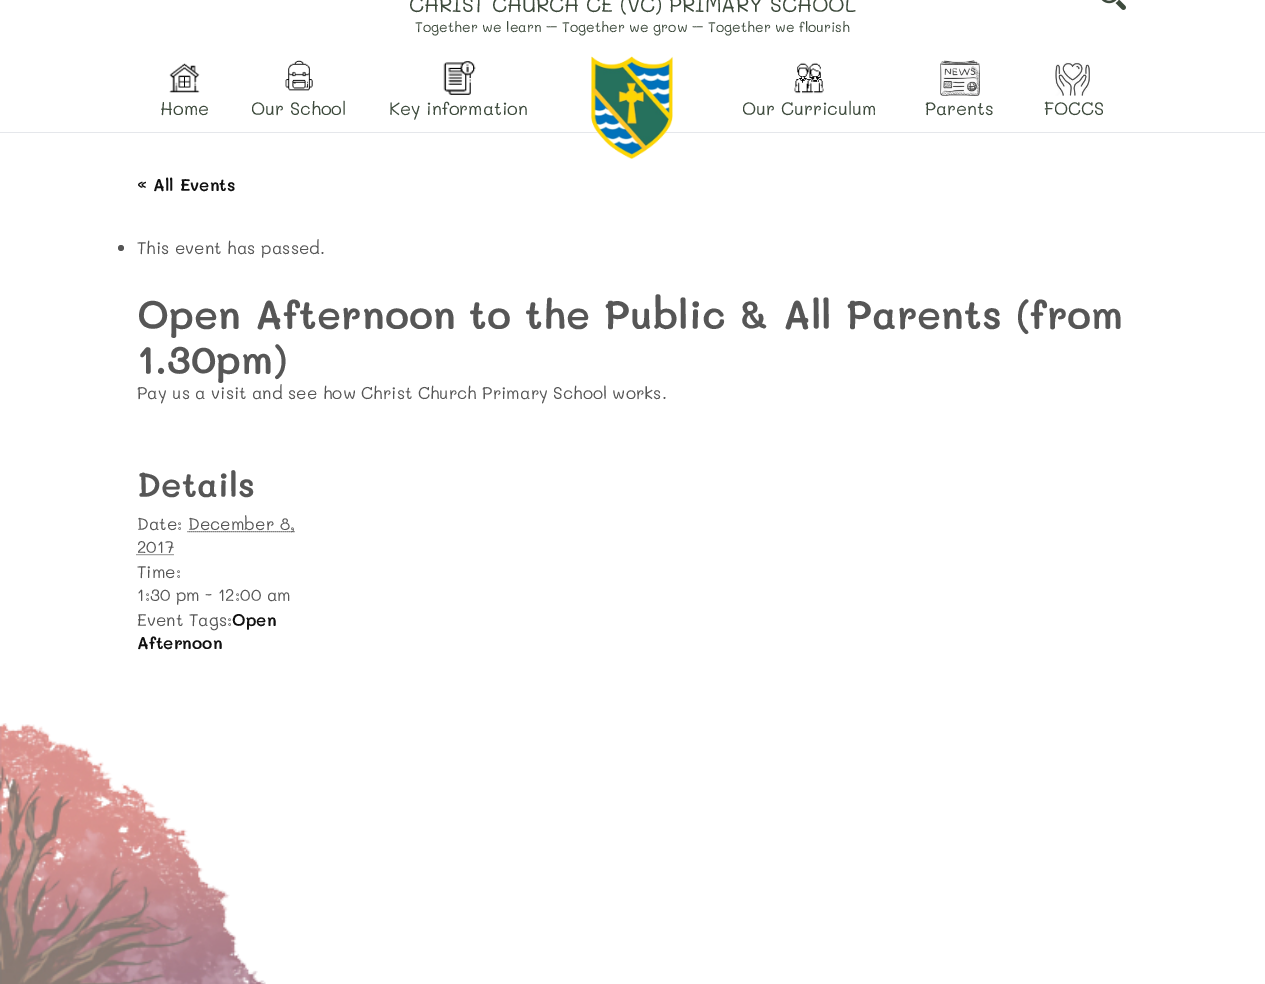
%!PS
<< /PageSize [1265 984] >> setpagedevice
/rgb { 3 { 255 div 3 1 roll } repeat setrgbcolor } def
/font { [ exch dup neg 0 0 3 -1 roll 0 0 ] selectfont } def
/circle { newpath 0 360 arc closepath } def
/picture { 5 dict begin { /h /w /y /x /name } { exch def } forall
  gsave x y translate w h scale
  w h 8 [w 0 0 h 0 0] name (r) file false 3 colorimage grestore end } def
0 984 translate 1 -1 scale
4 setmiterlimit
255 255 255 rgb
0 0 1265 984 rectfill
229 231 235 rgb
0 132 1265 1 rectfill
(img/1.rgb) 1101 0 25 10 picture
(img/2.rgb) 169 63 31 30 picture
(img/3.rgb) 285 60 28 31 picture
(img/4.rgb) 443 61 33 34 picture
(img/5.rgb) 590 56 83 103 picture
(img/6.rgb) 794 62 30 32 picture
(img/7.rgb) 940 60 40 36 picture
(img/8.rgb) 1055 62 35 34 picture
86 86 86 rgb
121 248 3 circle fill
[1 1] 0 setdash
187.5 531.5 moveto 294.5 531.5 lineto stroke
136.5 554.5 moveto 173.5 554.5 lineto stroke
(img/9.rgb) 0 723 266 261 picture
/Mali-Regular 21 font
61 74 60 rgb
409 12 moveto (CHRIST CHURCH CE \(VC\) PRIMARY SCHOOL) show
/Mali-Regular 14 font
415 32 moveto (Together we learn – Together we grow – Together we flourish) show
/Mali-Regular 18 font
[
  [(Home) 160 115]
  [(Our School) 251 115]
  [(Key information) 389 115]
  [(Our Curriculum) 742 115]
  [(Parents) 925 115]
  [(FOCCS) 1044 115]
] { aload pop moveto show } forall
/Mali-SemiBold 17 font
17 17 17 rgb
137 191 moveto (« All Events) show
/Mali-Regular 17 font
86 86 86 rgb
137 254 moveto (This event has passed.) show
/Mali-SemiBold 40 font
137 329 moveto (Open Afternoon to the Public & All Parents \(from) show
137 374 moveto (1.30pm\)) show
/Mali-Regular 17 font
137 399 moveto (Pay us a visit and see how Christ Church Primary School works.) show
/Mali-SemiBold 34 font
137 497 moveto (Details) show
/Mali-Regular 17 font
[
  [(Date:) 137 530]
  [(December 8,) 188 530]
  [(2017) 137 553]
  [(Time:) 137 578]
  [(1:30 pm - 12:00 am) 137 601]
  [(Event Tags:) 137 626]
] { aload pop moveto show } forall
/Mali-SemiBold 17 font
17 17 17 rgb
232 626 moveto (Open) show
137 649 moveto (Afternoon) show
showpage
